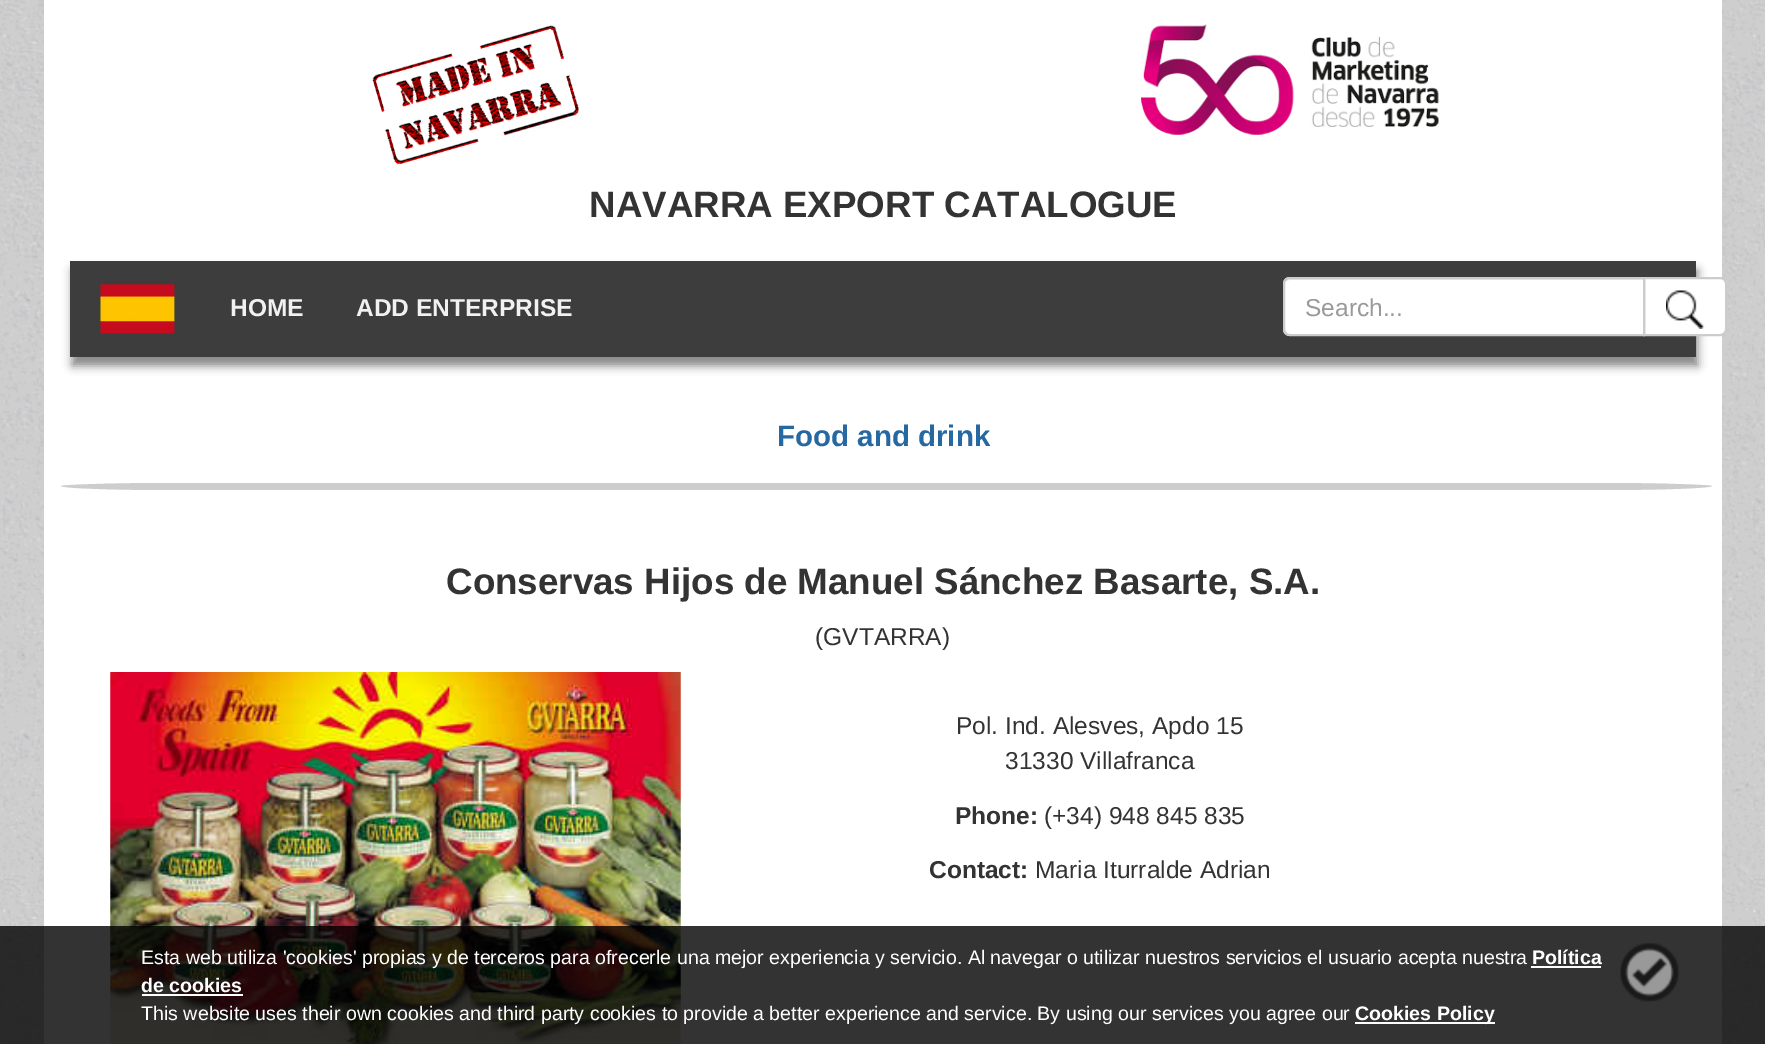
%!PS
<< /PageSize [1765 1044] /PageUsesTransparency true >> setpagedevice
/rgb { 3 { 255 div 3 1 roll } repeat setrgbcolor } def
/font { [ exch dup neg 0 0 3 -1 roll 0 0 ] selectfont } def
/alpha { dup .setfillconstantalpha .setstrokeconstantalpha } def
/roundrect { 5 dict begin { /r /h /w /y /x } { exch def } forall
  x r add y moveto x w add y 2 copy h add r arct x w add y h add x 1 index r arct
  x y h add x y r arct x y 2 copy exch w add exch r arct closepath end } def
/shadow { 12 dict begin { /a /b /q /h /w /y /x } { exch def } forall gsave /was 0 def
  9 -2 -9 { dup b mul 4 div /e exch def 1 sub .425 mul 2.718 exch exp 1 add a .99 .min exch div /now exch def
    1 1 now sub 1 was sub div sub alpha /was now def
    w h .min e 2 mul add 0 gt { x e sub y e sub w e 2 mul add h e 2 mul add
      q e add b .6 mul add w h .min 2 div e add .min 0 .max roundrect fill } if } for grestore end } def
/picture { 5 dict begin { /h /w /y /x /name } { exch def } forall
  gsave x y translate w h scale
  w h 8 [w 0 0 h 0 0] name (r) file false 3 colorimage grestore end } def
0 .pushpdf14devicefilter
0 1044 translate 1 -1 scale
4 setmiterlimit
255 255 255 rgb
0 0 1765 1044 rectfill
(img/1.rgb) 0 0 1765 1044 picture
44 0 1678 1044 rectfill
(img/2.rgb) 372 25 207 140 picture
(img/3.rgb) 1141 24 298 111 picture
136 136 136 rgb
72 270 1626 96 0 4.5 1 shadow
61 61 61 rgb
70 261 1626 96 rectfill
(img/4.rgb) 100 284 75 50 picture
255 255 255 rgb
1644 278 moveto 1720 278 lineto 1723.5 278 1726 280.5 1726 284 curveto 1726 329 lineto 1726 332.5 1723.5 335 1720 335 curveto 1644 335 lineto closepath gsave fill grestore
204 204 204 rgb
2 setlinewidth
stroke
255 255 255 rgb
1290 277 moveto 1645 277 lineto 1645 336 lineto 1290 336 lineto 1286 336 1283 333 1283 329 curveto 1283 284 lineto 1283 280 1286 277 1290 277 curveto closepath fill
236 236 236 rgb
1290 280 moveto 1643 280 lineto 1643 278 lineto 1290 278 lineto 1288 278 1285 280 1285 282 curveto 1286 281 1288 280 1290 280 curveto closepath fill
204 204 204 rgb
1290 278 moveto 1644 278 lineto 1644 335 lineto 1290 335 lineto 1286.5 335 1284 332.5 1284 329 curveto 1284 284 lineto 1284 280.5 1286.5 278 1290 278 curveto closepath stroke
(img/5.rgb) 1666 290 39 39 picture
205 205 205 rgb
166 483 moveto 1606 483 lineto 1664 483 1712 485 1712 486 curveto 1712 488 1664 490 1606 490 curveto 166 490 lineto 108 490 61 488 61 486 curveto 61 485 108 483 166 483 curveto closepath fill
(img/6.rgb) 110 672 571 372 picture
0.8 alpha
0 0 0 rgb
0 926 1765 118 rectfill
1 alpha
255 255 255 rgb
1531 966 70 2 rectfill
(img/7.rgb) 1620 943 59 59 picture
142 994 101 2 rectfill
1355 1022 140 2 rectfill
/LiberationSans-Bold 36.75 font
51 51 51 rgb
589 217 moveto (NAVARRA EXPORT CATALOGUE) show
/LiberationSans-Bold 24.5 font
241 241 241 rgb
230 316 moveto (HOME) show
356 316 moveto (ADD ENTERPRISE) show
/LiberationSans-Regular 24.5 font
153 153 153 rgb
1305 316 moveto (Search...) show
/LiberationSans-Bold 29.5 font
38 104 161 rgb
777 446 moveto (Food and drink) show
/LiberationSans-Bold 36.75 font
51 51 51 rgb
446 594 moveto (Conservas Hijos de Manuel Sánchez Basarte, S.A.) show
/LiberationSans-Regular 24.5 font
[
  [(\(GVTARRA\)) 815 645]
  [(Pol. Ind. Alesves, Apdo 15) 956 734]
  [(31330 Villafranca) 1005 769]
] { aload pop moveto show } forall
/LiberationSans-Bold 24.5 font
955 824 moveto (Phone:) show
/LiberationSans-Regular 24.5 font
1044 824 moveto (\(+34\) 948 845 835) show
/LiberationSans-Bold 24.5 font
929 878 moveto (Contact:) show
/LiberationSans-Regular 24.5 font
1035 878 moveto (Maria Iturralde Adrian) show
/LiberationSans-Regular 19.6 font
255 255 255 rgb
141 964 moveto (Esta web utiliza 'cookies' propias y de terceros para ofrecerle una mejor experiencia y servicio. Al navegar o utilizar nuestros servicios el usuario acepta nuestra) show
/LiberationSans-Bold 19.6 font
1532 964 moveto (Política) show
141 992 moveto (de cookies) show
/LiberationSans-Regular 19.6 font
141 1020 moveto (This website uses their own cookies and third party cookies to provide a better experience and service. By using our services you agree our) show
/LiberationSans-Bold 19.6 font
1355 1020 moveto (Cookies Policy) show
.poppdf14devicefilter showpage
